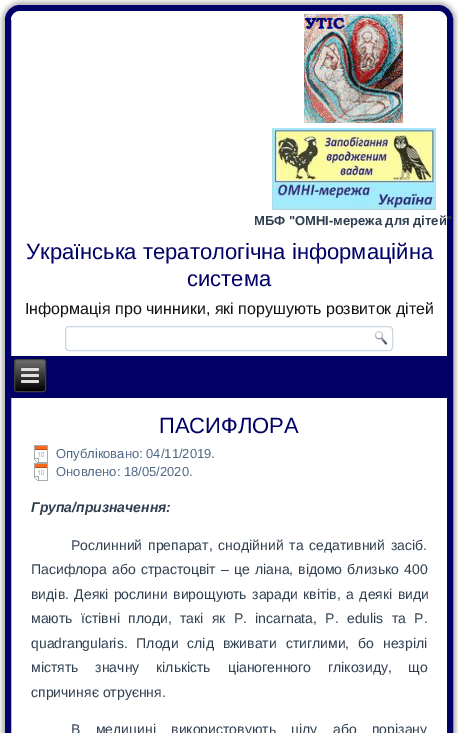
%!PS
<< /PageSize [458 733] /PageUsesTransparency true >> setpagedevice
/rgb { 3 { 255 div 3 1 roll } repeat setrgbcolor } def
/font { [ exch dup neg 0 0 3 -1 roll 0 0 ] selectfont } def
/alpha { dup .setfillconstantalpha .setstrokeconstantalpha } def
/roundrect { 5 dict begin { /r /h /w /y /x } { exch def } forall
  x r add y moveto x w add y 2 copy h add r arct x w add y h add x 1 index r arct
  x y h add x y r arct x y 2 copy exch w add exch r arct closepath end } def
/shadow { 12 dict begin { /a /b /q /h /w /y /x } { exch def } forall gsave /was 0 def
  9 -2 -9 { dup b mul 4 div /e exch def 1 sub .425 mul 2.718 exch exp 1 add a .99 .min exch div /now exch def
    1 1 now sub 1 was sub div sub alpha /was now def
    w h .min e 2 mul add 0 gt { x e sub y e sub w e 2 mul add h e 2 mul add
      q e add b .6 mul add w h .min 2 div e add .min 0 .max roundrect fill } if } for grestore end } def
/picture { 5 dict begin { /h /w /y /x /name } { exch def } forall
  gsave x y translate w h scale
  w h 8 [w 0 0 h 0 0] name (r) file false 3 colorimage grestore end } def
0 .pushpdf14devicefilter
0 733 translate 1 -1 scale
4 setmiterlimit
255 255 255 rgb
0 0 458 733 rectfill
0 0 0 rgb
2 2 454 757 18 2.5 0.3 shadow
255 255 255 rgb
8 8 442 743 12 roundrect gsave fill grestore
0 0 102 rgb
6 setlinewidth
stroke
(img/1.rgb) 11 11 436 9 picture
(img/2.rgb) 304 14 99 109 picture
(img/3.rgb) 272 128 164 82 picture
204 214 224 rgb
1 setlinewidth
65.5 326.5 327 24 3.5 roundrect stroke
(img/4.rgb) 374 331 14 14 picture
0 0 102 rgb
11 356 436 42 rectfill
0 0 0 rgb
14 359 32 33 3 1.5 0.2 shadow
gsave
14 359 32 33 3 roundrect clip newpath
gsave 14 360 moveto 46 360 lineto 46 391 lineto 14 391 lineto closepath clip newpath
<< /ShadingType 2 /ColorSpace /DeviceRGB /Coords [30 360 30 391] /Extend [true true] /Function << /FunctionType 2 /Domain [0 1] /C0 [0.439 0.439 0.439] /C1 [0 0 0] /N 1 >> >> shfill grestore
grestore
64 64 64 rgb
14.5 359.5 31 32 2.5 roundrect stroke
224 224 224 rgb
21 368 18 3 1.5 roundrect fill
21 374 18 3 1.5 roundrect fill
21 380 18 3 1.5 roundrect fill
(img/5.rgb) 34 445 14 18 picture
(img/5.rgb) 34 463 14 18 picture
/LiberationSans-Bold 13 font
48 63 80 rgb
254 225 moveto (МБФ "ОМНІ-мережа для дітей") show
/LiberationSans-Regular 22 font
0 0 102 rgb
26 259 moveto (Українська тератологічна інформаційна) show
187 286 moveto (система) show
/LiberationSans-Regular 16 font
17 20 23 rgb
25 314 moveto (Інформація про чинники, які порушують розвиток дітей) show
/LiberationSans-Regular 22 font
0 0 102 rgb
159 433 moveto (ПАСИФЛОРА) show
/LiberationSans-Regular 13 font
78 104 131 rgb
56 458 moveto (Опубліковано: 04/11/2019.) show
56 476 moveto (Оновлено: 18/05/2020.) show
/LiberationSans-BoldItalic 14 font
48 63 80 rgb
31 512 moveto (Група/призначення:) show
/LiberationSans-Regular 14 font
71 550 moveto 2 0 32 (Рослинний препарат, снодійний та седативний засіб.) widthshow
31 574 moveto 1.25 0 32 (Пасифлора або страстоцвіт – це ліана, відомо близько 400) widthshow
31 599 moveto 1.5 0 32 (видів. Деякі рослини вирощують заради квітів, а деякі види) widthshow
31 623 moveto 4.5 0 32 (мають їстівні плоди, такі як P. incarnata, P. edulis та P.) widthshow
31 648 moveto 5 0 32 (quadrangularis. Плоди слід вживати стиглими, бо незрілі) widthshow
31 672 moveto 13 0 32 (містять значну кількість ціаногенного глікозиду, що) widthshow
31 697 moveto (спричиняє отруєння.) show
71 734 moveto 11.5 0 32 (В медицині використовують цілу або порізану) widthshow
.poppdf14devicefilter showpage
